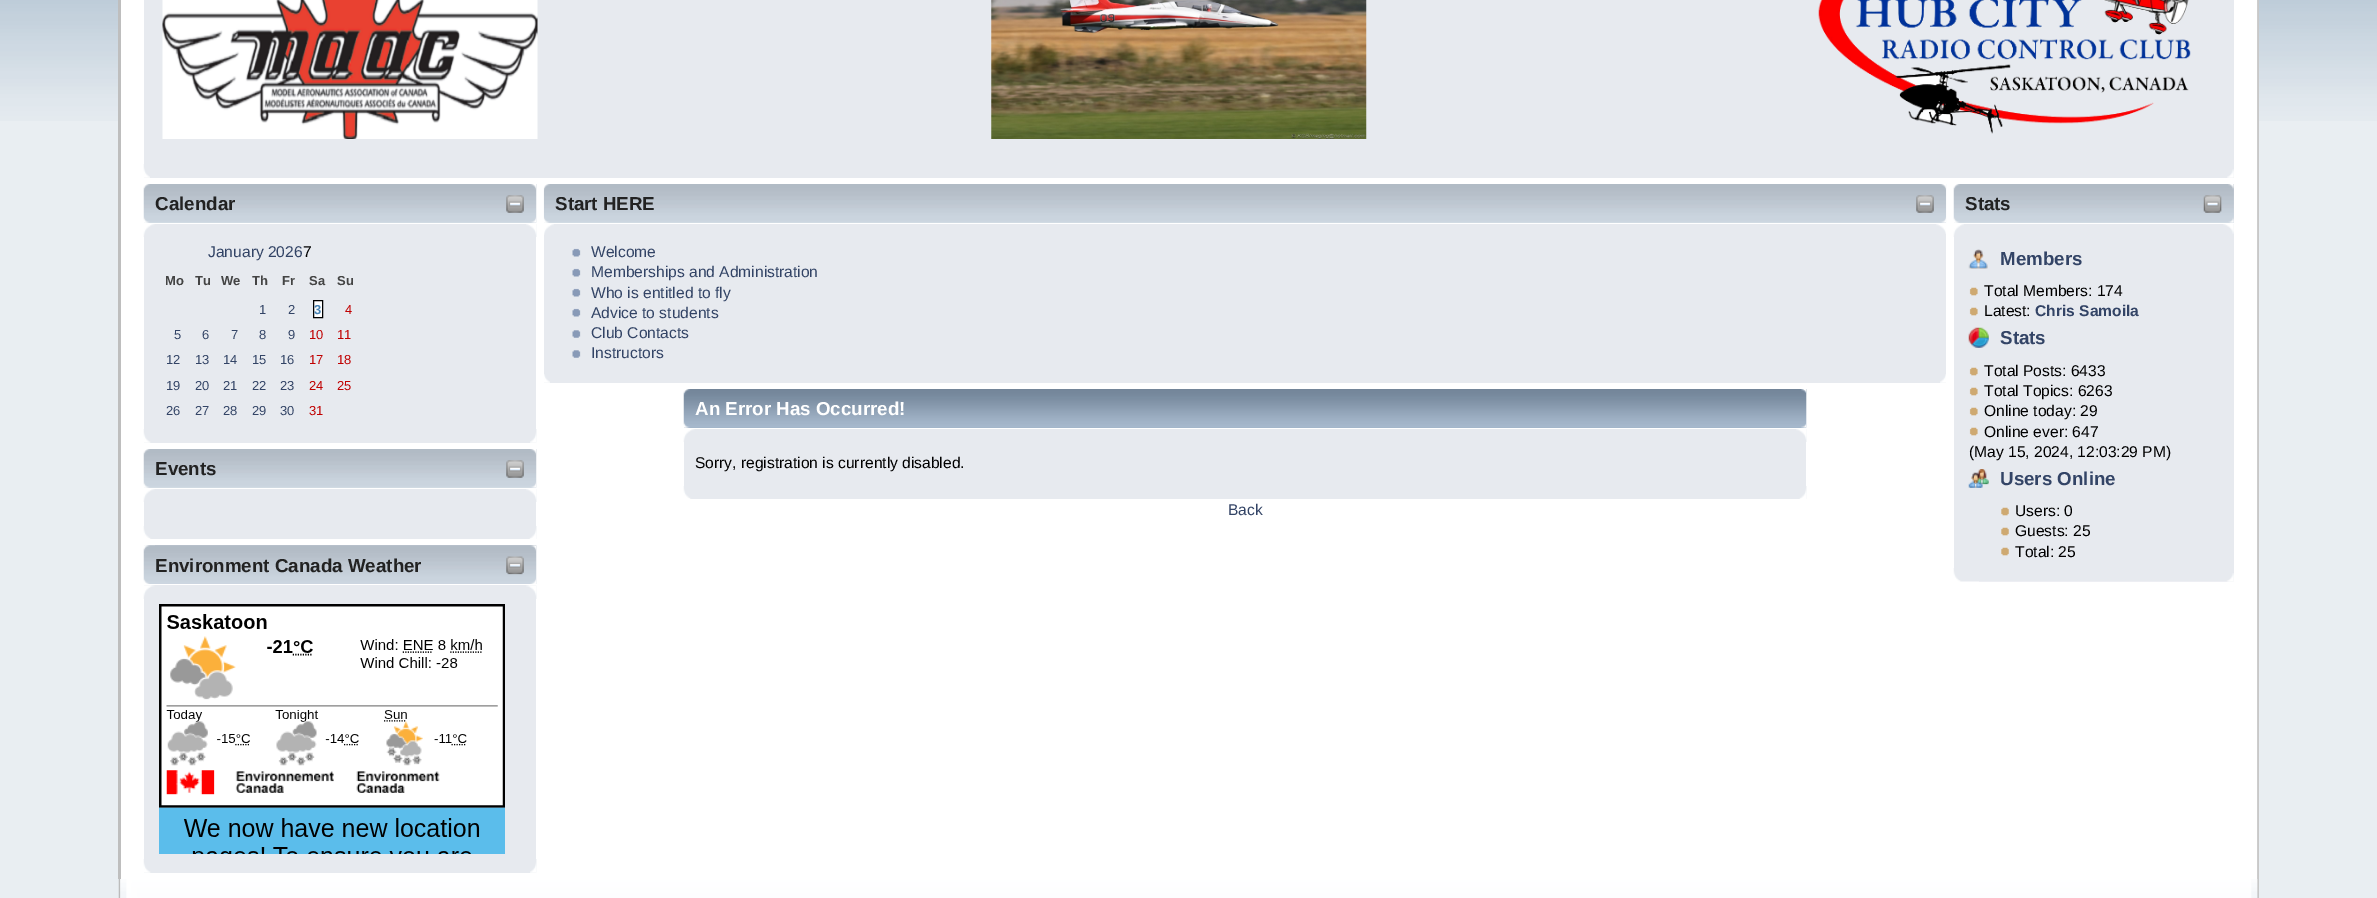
%!PS
<< /PageSize [2377 898] >> setpagedevice
/rgb { 3 { 255 div 3 1 roll } repeat setrgbcolor } def
/font { [ exch dup neg 0 0 3 -1 roll 0 0 ] selectfont } def
/picture { 5 dict begin { /h /w /y /x /name } { exch def } forall
  gsave x y translate w h scale
  w h 8 [w 0 0 h 0 0] name (r) file false 3 colorimage grestore end } def
0 898 translate 1 -1 scale
4 setmiterlimit
233 238 242 rgb
0 0 2377 898 rectfill
(img/1.rgb) 0 0 2377 121 picture
255 255 255 rgb
121 0 2138 879 rectfill
190 190 190 rgb
118 0 3 879 rectfill
(img/2.rgb) 2257 0 2 879 picture
231 234 239 rgb
144 0 2090 178 rectfill
(img/3.rgb) 162 0 376 139 picture
(img/4.rgb) 991 0 376 139 picture
(img/5.rgb) 1818 0 373 134 picture
(img/6.rgb) 143 164 7 14 picture
(img/7.rgb) 2227 169 7 9 picture
(img/8.rgb) 143 184 394 39 picture
(img/9.rgb) 530 184 6 39 picture
(img/10.rgb) 506 195 18 18 picture
144 237 392 206 rectfill
(img/11.rgb) 143 224 394 13 picture
(img/12.rgb) 526 224 11 13 picture
255 255 255 rgb
313.5 300.5 moveto 322.5 300.5 lineto 322.5 317.5 lineto 313.5 317.5 lineto closepath gsave fill grestore
0 0 0 rgb
stroke
(img/13.rgb) 143 429 394 14 picture
(img/14.rgb) 530 429 7 14 picture
(img/8.rgb) 143 449 394 39 picture
(img/9.rgb) 530 449 6 39 picture
(img/10.rgb) 506 460 18 18 picture
231 234 239 rgb
144 502 392 24 rectfill
(img/11.rgb) 143 489 394 13 picture
(img/12.rgb) 526 489 11 13 picture
(img/15.rgb) 143 526 394 13 picture
(img/16.rgb) 529 526 8 13 picture
(img/17.rgb) 143 545 394 39 picture
(img/18.rgb) 155 545 381 39 picture
(img/19.rgb) 506 556 18 19 picture
144 585 392 288 rectfill
(img/20.rgb) 143 585 394 14 picture
(img/21.rgb) 526 585 11 14 picture
(img/22.rgb) 159 604 346 250 picture
(img/13.rgb) 143 859 394 14 picture
(img/14.rgb) 530 859 7 14 picture
(img/23.rgb) 543 184 1404 39 picture
(img/24.rgb) 1940 184 6 39 picture
(img/25.rgb) 1916 195 18 18 picture
544 224 1402 159 rectfill
(img/26.rgb) 544 224 10 11 picture
(img/27.rgb) 1936 224 10 10 picture
(img/28.rgb) 572 248 9 9 picture
(img/28.rgb) 572 268 9 9 picture
(img/28.rgb) 572 288 9 9 picture
(img/28.rgb) 572 308 9 9 picture
(img/29.rgb) 572 330 9 8 picture
(img/29.rgb) 572 350 9 8 picture
(img/30.rgb) 544 374 6 9 picture
(img/31.rgb) 1940 374 6 9 picture
(img/32.rgb) 683 389 1124 39 picture
(img/33.rgb) 1801 389 6 39 picture
684 442 1122 44 rectfill
(img/34.rgb) 683 429 1124 13 picture
(img/35.rgb) 1796 429 11 13 picture
(img/36.rgb) 683 486 1124 13 picture
(img/37.rgb) 1799 486 8 13 picture
(img/38.rgb) 1953 184 281 39 picture
(img/39.rgb) 2228 184 6 39 picture
(img/40.rgb) 2203 195 19 18 picture
1954 224 280 357 rectfill
(img/41.rgb) 1953 224 11 13 picture
(img/42.rgb) 2223 224 11 10 picture
(img/43.rgb) 1968 249 20 20 picture
(img/44.rgb) 1969 287 9 9 picture
(img/44.rgb) 1969 307 9 9 picture
(img/45.rgb) 1968 327 21 21 picture
(img/44.rgb) 1969 367 9 9 picture
(img/44.rgb) 1969 387 9 9 picture
(img/44.rgb) 1969 407 9 9 picture
(img/44.rgb) 1969 427 9 9 picture
(img/46.rgb) 1968 469 21 19 picture
(img/47.rgb) 2001 507 8 9 picture
(img/47.rgb) 2001 527 8 9 picture
(img/47.rgb) 2001 547 8 9 picture
(img/48.rgb) 1953 568 281 14 picture
(img/49.rgb) 1979 573 255 9 picture
(img/50.rgb) 118 879 2141 19 picture
(img/51.rgb) 2251 879 8 19 picture
/LiberationSans-Bold 18.75 font
34 34 34 rgb
155 210 moveto (Calendar) show
/LiberationSans-Regular 15.6 font
51 68 102 rgb
208 257 moveto (January 2026) show
0 0 0 rgb
303 257 moveto (7) show
/LiberationSans-Bold 13 font
68 68 68 rgb
[
  [(Mo) 165 285]
  [(Tu) 195 285]
  [(We) 221 285]
  [(Th) 252 285]
  [(Fr) 282 285]
  [(Sa) 309 285]
  [(Su) 337 285]
] { aload pop moveto show } forall
/LiberationSans-Regular 13 font
51 68 102 rgb
259 314 moveto (1) show
288 314 moveto (2) show
/LiberationSans-Bold 13 font
70 130 180 rgb
314 314 moveto (3) show
/LiberationSans-Regular 13 font
192 0 0 rgb
345 314 moveto (4) show
51 68 102 rgb
[
  [(5) 174 339]
  [(6) 202 339]
  [(7) 231 339]
  [(8) 259 339]
  [(9) 288 339]
] { aload pop moveto show } forall
192 0 0 rgb
309 339 moveto (10) show
337 339 moveto (11) show
51 68 102 rgb
[
  [(12) 166 364]
  [(13) 195 364]
  [(14) 223 364]
  [(15) 252 364]
  [(16) 280 364]
] { aload pop moveto show } forall
192 0 0 rgb
309 364 moveto (17) show
337 364 moveto (18) show
51 68 102 rgb
[
  [(19) 166 390]
  [(20) 195 390]
  [(21) 223 390]
  [(22) 252 390]
  [(23) 280 390]
] { aload pop moveto show } forall
192 0 0 rgb
309 390 moveto (24) show
337 390 moveto (25) show
51 68 102 rgb
[
  [(26) 166 415]
  [(27) 195 415]
  [(28) 223 415]
  [(29) 252 415]
  [(30) 280 415]
] { aload pop moveto show } forall
192 0 0 rgb
309 415 moveto (31) show
/LiberationSans-Bold 18.75 font
34 34 34 rgb
[
  [(Events) 155 475]
  [(Environment Canada Weather) 155 572]
  [(Start HERE) 555 210]
] { aload pop moveto show } forall
/LiberationSans-Regular 15.6 font
51 68 102 rgb
[
  [(Welcome) 591 257]
  [(Memberships and Administration) 591 277]
  [(Who is entitled to fly) 591 298]
  [(Advice to students) 591 318]
  [(Club Contacts) 591 338]
  [(Instructors) 591 358]
] { aload pop moveto show } forall
/LiberationSans-Bold 18.75 font
255 255 255 rgb
695 415 moveto (An Error Has Occurred!) show
/LiberationSans-Regular 15.6 font
0 0 0 rgb
695 468 moveto (Sorry, registration is currently disabled.) show
51 68 102 rgb
1228 515 moveto (Back) show
/LiberationSans-Bold 18.75 font
34 34 34 rgb
1965 210 moveto (Stats) show
51 68 102 rgb
2000 265 moveto (Members) show
/LiberationSans-Regular 15.6 font
0 0 0 rgb
1984 296 moveto (Total Members: 174) show
1984 316 moveto (Latest:) show
/LiberationSans-Bold 15.6 font
51 68 102 rgb
2035 316 moveto (Chris Samoila) show
/LiberationSans-Bold 18.75 font
2000 344 moveto (Stats) show
/LiberationSans-Regular 15.6 font
0 0 0 rgb
[
  [(Total Posts: 6433) 1984 376]
  [(Total Topics: 6263) 1984 396]
  [(Online today: 29) 1984 416]
  [(Online ever: 647) 1984 437]
  [(\(May 15, 2024, 12:03:29 PM\)) 1969 457]
] { aload pop moveto show } forall
/LiberationSans-Bold 18.75 font
51 68 102 rgb
2000 485 moveto (Users Online) show
/LiberationSans-Regular 15.6 font
0 0 0 rgb
[
  [(Users: 0) 2015 516]
  [(Guests: 25) 2015 536]
  [(Total: 25) 2015 557]
] { aload pop moveto show } forall
showpage
